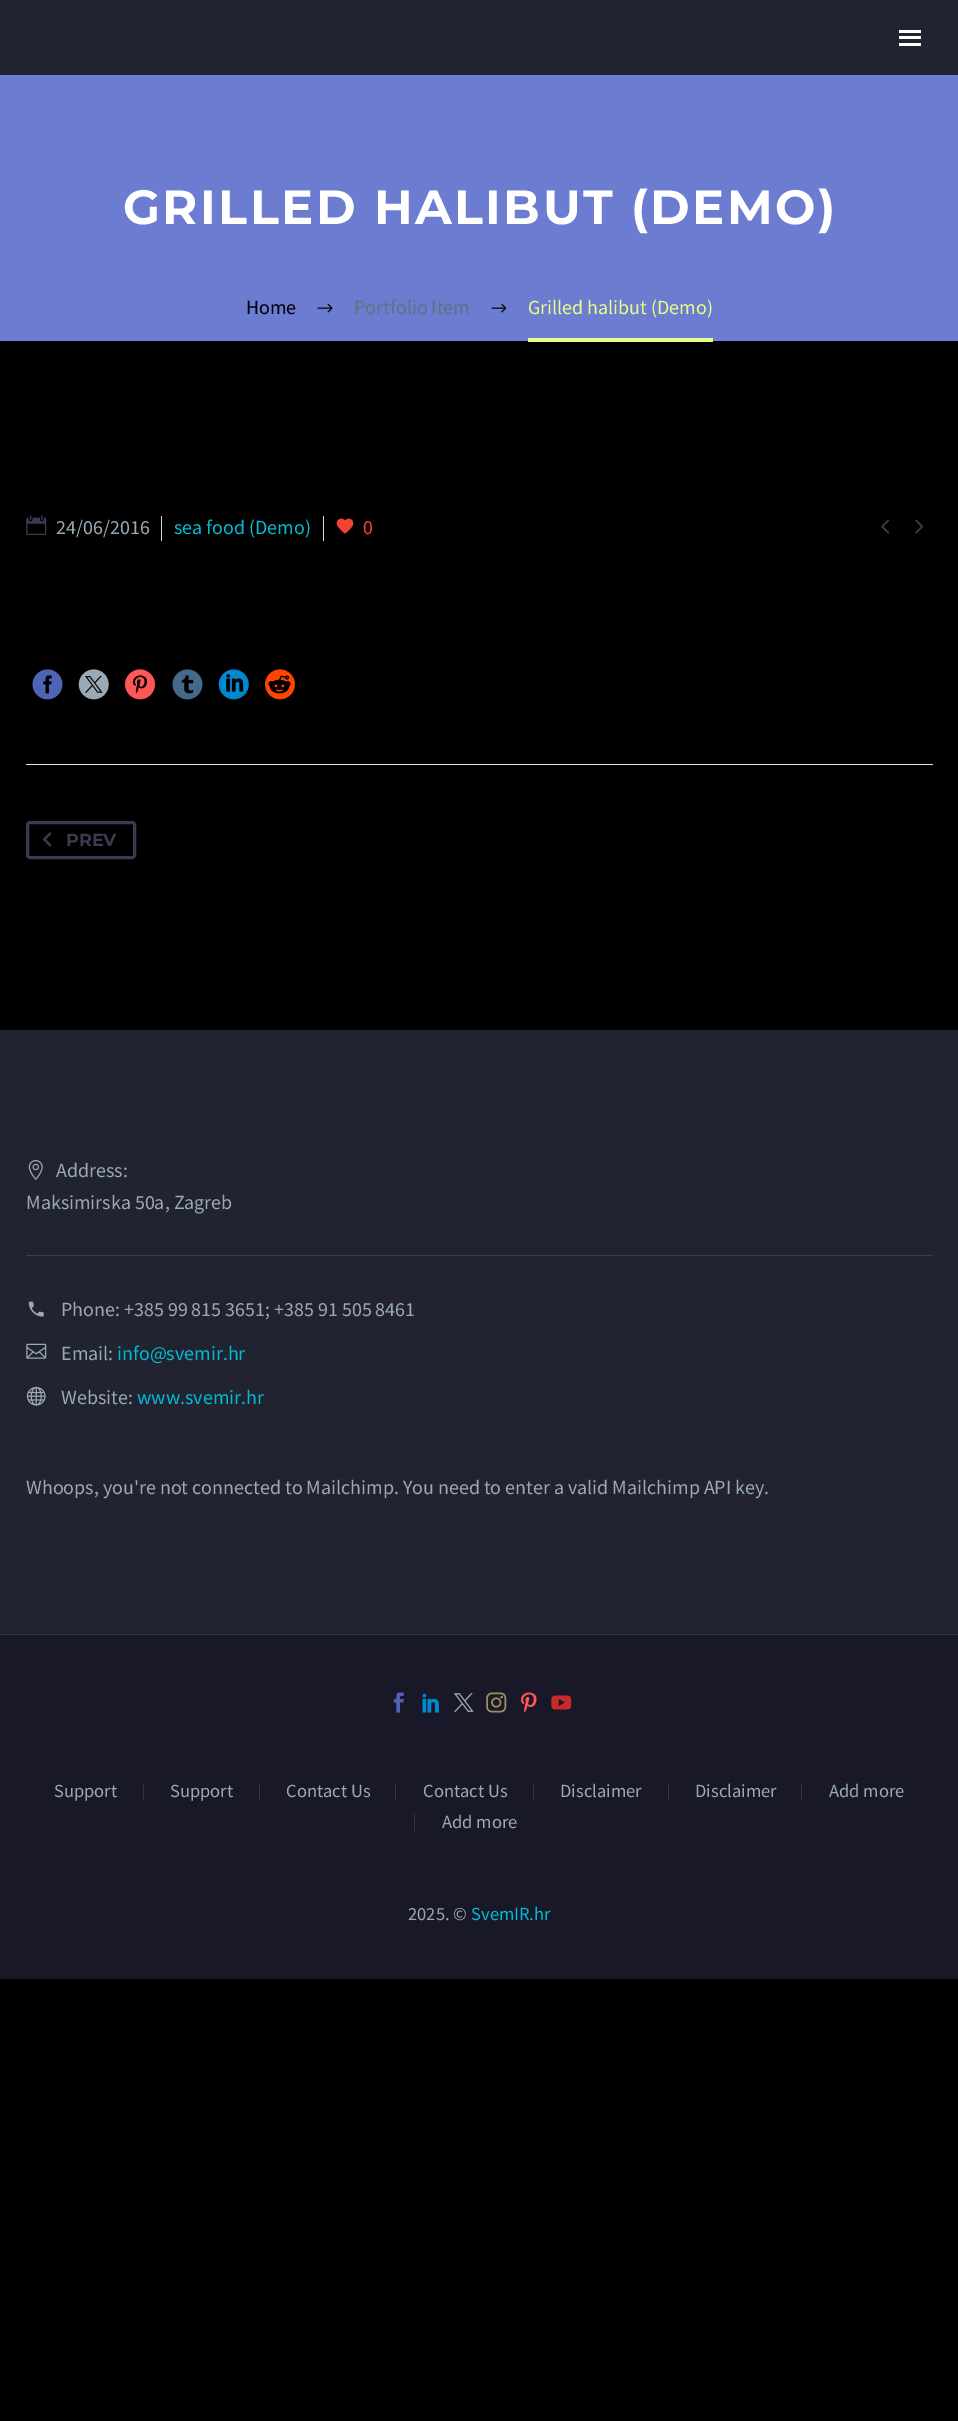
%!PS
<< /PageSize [958 2421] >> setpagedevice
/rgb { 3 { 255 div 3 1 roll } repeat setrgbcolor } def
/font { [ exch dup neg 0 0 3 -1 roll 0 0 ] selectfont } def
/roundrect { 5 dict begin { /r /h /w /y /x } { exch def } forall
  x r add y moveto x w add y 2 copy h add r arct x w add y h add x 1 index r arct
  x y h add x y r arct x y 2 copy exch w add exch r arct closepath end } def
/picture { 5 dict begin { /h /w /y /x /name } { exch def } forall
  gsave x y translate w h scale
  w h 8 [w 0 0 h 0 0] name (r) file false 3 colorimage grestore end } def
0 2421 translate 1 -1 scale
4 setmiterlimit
0 0 0 rgb
0 0 958 2421 rectfill
[
  [0 0 958 75 33 35 49]
  [899 30 22 3 255 255 255]
  [899 36 22 3 255 255 255]
  [899 43 22 3 255 255 255]
  [0 75 958 266 108 124 208]
] { aload pop rgb rectfill } forall
(img/1.rgb) 317 303 16 10 picture
(img/2.rgb) 491 303 16 10 picture
231 255 137 rgb
528 338 185 4 rectfill
(img/3.rgb) 26 515 21 20 picture
212 222 225 rgb
161 516 1 25 rectfill
323 516 1 25 rectfill
(img/4.rgb) 336 518 18 16 picture
(img/5.rgb) 881 519 9 15 picture
(img/6.rgb) 915 519 9 15 picture
(img/7.rgb) 32 669 31 31 picture
(img/8.rgb) 78 669 31 31 picture
(img/9.rgb) 125 669 30 31 picture
(img/10.rgb) 172 669 31 31 picture
(img/11.rgb) 218 669 31 31 picture
(img/12.rgb) 265 669 30 31 picture
223 229 232 rgb
26 764 907 1 rectfill
60 57 80 rgb
3 setlinewidth
27.5 822.5 107 35 2.5 roundrect stroke
(img/13.rgb) 42 832 10 15 picture
33 35 49 rgb
0 1030 958 604 rectfill
57 61 80 rgb
26 1255 907 1 rectfill
(img/14.rgb) 28 1160 15 20 picture
(img/15.rgb) 28 1301 16 16 picture
(img/16.rgb) 26 1343 21 16 picture
(img/17.rgb) 26 1386 20 20 picture
24 24 40 rgb
0 1635 958 344 rectfill
49 54 70 rgb
0 1634 958 1 rectfill
(img/18.rgb) 393 1692 11 21 picture
(img/19.rgb) 422 1693 17 20 picture
(img/20.rgb) 453 1693 21 19 picture
(img/21.rgb) 486 1692 21 21 picture
(img/22.rgb) 521 1692 16 21 picture
(img/23.rgb) 551 1695 21 15 picture
[
  [143 1783 1 17 51 49 70]
  [259 1783 1 17 51 49 70]
  [395 1783 1 17 51 49 70]
  [533 1783 1 17 51 49 70]
  [668 1783 1 17 51 49 70]
  [801 1783 1 17 51 49 70]
  [414 1813 1 18 51 49 70]
] { aload pop rgb rectfill } forall
/Montserrat-Bold 48 font
255 255 255 rgb
123 224 moveto 2.4 0 (GRILLED HALIBUT \(DEMO\)) ashow
/SourceSansPro-Regular 20 font
0 0 0 rgb
246 314 moveto (Home) show
95 114 127 rgb
354 314 moveto (Portfolio Item) show
231 255 137 rgb
528 314 moveto (Grilled halibut \(Demo\)) show
153 169 181 rgb
56 534 moveto (24/06/2016) show
0 188 212 rgb
174 534 moveto (sea food \(Demo\)) show
244 67 54 rgb
363 534 moveto (0) show
/Montserrat-Bold 17.5 font
60 57 80 rgb
66 846 moveto (PREV) show
/SourceSansPro-Regular 20 font
153 169 181 rgb
[
  [(Address:) 56 1177]
  [(Maksimirska 50a, Zagreb) 26 1209]
  [(Phone: +385 99 815 3651; +385 91 505 8461) 61 1316]
  [(Email:) 61 1360]
] { aload pop moveto show } forall
0 188 212 rgb
117 1360 moveto (info@svemir.hr) show
153 169 181 rgb
61 1404 moveto (Website:) show
0 188 212 rgb
137 1404 moveto (www.svemir.hr) show
153 169 181 rgb
26 1494 moveto (Whoops, you're not connected to Mailchimp. You need to enter a valid Mailchimp API key.) show
/SourceSansPro-Regular 18.5 font
[
  [(Support) 54 1797]
  [(Support) 170 1797]
  [(Contact Us) 286 1797]
  [(Contact Us) 423 1797]
  [(Disclaimer) 560 1797]
  [(Disclaimer) 695 1797]
  [(Add more) 829 1797]
  [(Add more) 442 1828]
  [(2025. ©) 408 1920]
] { aload pop moveto show } forall
0 188 212 rgb
471 1920 moveto (SvemIR.hr) show
showpage
